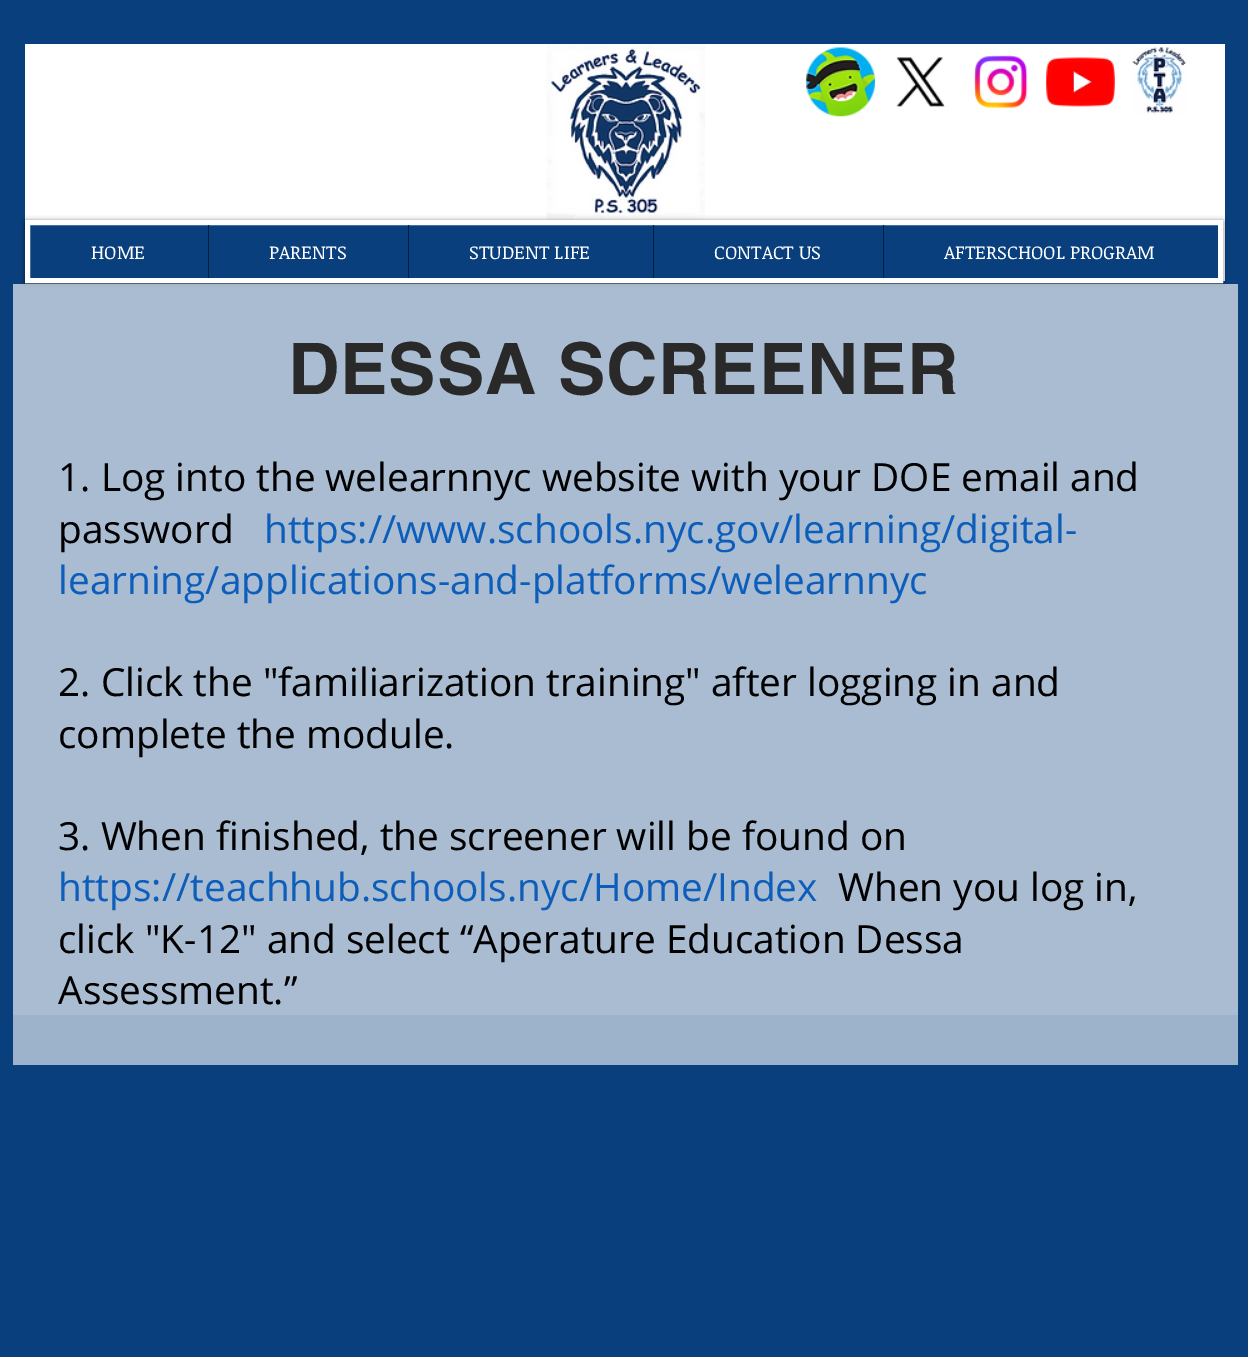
%!PS
<< /PageSize [1248 1357] /PageUsesTransparency true >> setpagedevice
/rgb { 3 { 255 div 3 1 roll } repeat setrgbcolor } def
/font { [ exch dup neg 0 0 3 -1 roll 0 0 ] selectfont } def
/alpha { dup .setfillconstantalpha .setstrokeconstantalpha } def
/roundrect { 5 dict begin { /r /h /w /y /x } { exch def } forall
  x r add y moveto x w add y 2 copy h add r arct x w add y h add x 1 index r arct
  x y h add x y r arct x y 2 copy exch w add exch r arct closepath end } def
/shadow { 12 dict begin { /a /b /q /h /w /y /x } { exch def } forall gsave /was 0 def
  9 -2 -9 { dup b mul 4 div /e exch def 1 sub .425 mul 2.718 exch exp 1 add a .99 .min exch div /now exch def
    1 1 now sub 1 was sub div sub alpha /was now def
    w h .min e 2 mul add 0 gt { x e sub y e sub w e 2 mul add h e 2 mul add
      q e add b .6 mul add w h .min 2 div e add .min 0 .max roundrect fill } if } for grestore end } def
/picture { 5 dict begin { /h /w /y /x /name } { exch def } forall
  gsave x y translate w h scale
  w h 8 [w 0 0 h 0 0] name (r) file false 3 colorimage grestore end } def
0 .pushpdf14devicefilter
0 1357 translate 1 -1 scale
4 setmiterlimit
9 63 124 rgb
0 0 1248 1357 rectfill
255 255 255 rgb
25 44 1200 237 rectfill
(img/1.rgb) 546 44 159 176 picture
(img/2.rgb) 806 47 69 70 picture
(img/3.rgb) 896 57 49 50 picture
(img/4.rgb) 974 55 54 54 picture
(img/5.rgb) 1046 57 69 50 picture
(img/6.rgb) 1132 47 55 68 picture
0 0 0 rgb
25 221 1198 63 0 2.5 0.6 shadow
9 63 124 rgb
27.5 222.5 moveto 1220.5 222.5 lineto 1220.5 280.5 lineto 27.5 280.5 lineto closepath gsave fill grestore
255 255 255 rgb
5 setlinewidth
stroke
[
  [208 225 1 53 4 31 62]
  [408 225 1 53 4 31 62]
  [653 225 1 53 4 31 62]
  [883 225 1 53 4 31 62]
] { aload pop rgb rectfill } forall
0.65 alpha
[
  [13 284 1225 731 255 255 255]
] { aload pop rgb rectfill } forall
1 alpha
[
  [13 1015 1225 50 157 178 203]
] { aload pop rgb rectfill } forall
/NoticiaText-Regular 18.75 font
255 255 255 rgb
[
  [(HOME) 91 259]
  [(PARENTS) 269 259]
  [(STUDENT LIFE) 469 259]
  [(CONTACT US) 714 259]
  [(AFTERSCHOOL PROGRAM) 944 259]
] { aload pop moveto show } forall
/helvetica-Bold 71.25 font
41 41 41 rgb
288 394 moveto 0.75 0 (DESSA SCREENER) ashow
/OpenSans-Regular 38.75 font
0 0 0 rgb
58 491 moveto (1. Log into the welearnnyc website with your DOE email and) show
58 543 moveto (password) show
13 94 186 rgb
264 543 moveto (https://www.schools.nyc.gov/learning/digital-) show
58 594 moveto (learning/applications-and-platforms/welearnnyc) show
0 0 0 rgb
[
  [(2. Click the "familiarization training" after logging in and) 58 696]
  [(complete the module.) 58 748]
  [(3. When finished, the screener will be found on) 58 850]
] { aload pop moveto show } forall
13 94 186 rgb
58 901 moveto (https://teachhub.schools.nyc/Home/Index) show
0 0 0 rgb
[
  [(When you log in,) 838 901]
  [(click "K-12" and select “Aperature Education Dessa) 58 953]
  [(Assessment.”) 58 1004]
] { aload pop moveto show } forall
.poppdf14devicefilter showpage
